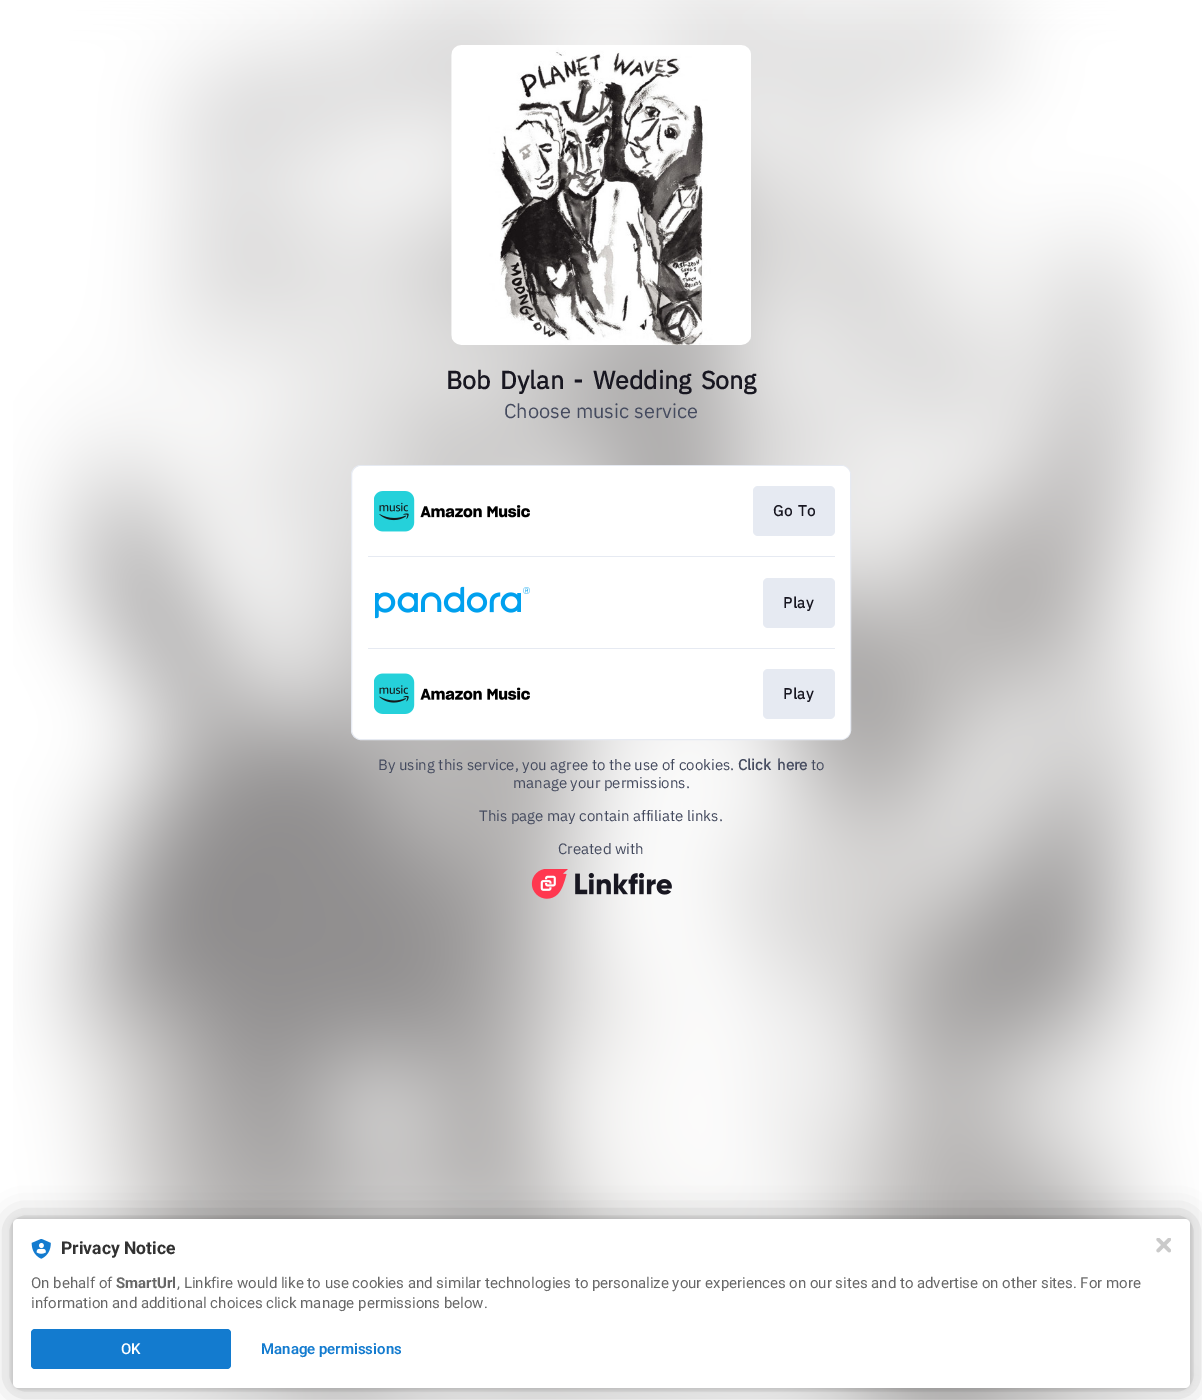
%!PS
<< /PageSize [1202 1400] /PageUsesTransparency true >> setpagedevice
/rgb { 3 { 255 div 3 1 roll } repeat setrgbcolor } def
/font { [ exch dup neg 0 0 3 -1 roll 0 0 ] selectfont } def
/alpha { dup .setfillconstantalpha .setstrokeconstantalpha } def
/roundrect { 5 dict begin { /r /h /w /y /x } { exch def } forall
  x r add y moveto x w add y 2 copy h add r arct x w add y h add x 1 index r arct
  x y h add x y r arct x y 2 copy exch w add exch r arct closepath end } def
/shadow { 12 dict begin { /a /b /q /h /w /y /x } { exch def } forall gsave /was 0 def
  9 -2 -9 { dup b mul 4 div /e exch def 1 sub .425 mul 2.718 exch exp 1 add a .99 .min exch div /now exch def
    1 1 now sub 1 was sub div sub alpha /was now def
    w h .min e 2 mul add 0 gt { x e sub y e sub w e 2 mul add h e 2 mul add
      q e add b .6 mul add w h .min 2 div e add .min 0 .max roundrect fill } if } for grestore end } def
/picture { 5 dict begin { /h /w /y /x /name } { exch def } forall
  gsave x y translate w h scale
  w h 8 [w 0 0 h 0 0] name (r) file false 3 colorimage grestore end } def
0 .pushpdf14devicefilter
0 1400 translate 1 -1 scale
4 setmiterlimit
255 255 255 rgb
0 0 1202 1400 rectfill
(img/1.rgb) 13 0 1186 1400 picture
(img/2.rgb) 451 45 300 300 picture
351.5 465.5 499 274 9.5 roundrect gsave fill grestore
230 234 242 rgb
stroke
255 255 255 rgb
353 466 497 273 9 roundrect fill
(img/3.rgb) 374 491 156 41 picture
230 234 242 rgb
753 486 82 50 5 roundrect fill
368 556 467 1 rectfill
(img/4.rgb) 375 586 155 33 picture
763 578 72 50 5 roundrect fill
368 648 467 1 rectfill
(img/5.rgb) 374 673 156 41 picture
763 669 72 50 5 roundrect fill
(img/6.rgb) 531 869 141 30 picture
0 0 0 rgb
13 1219 1177 169 5 2.5 0.12 shadow
13 1219 1177 169 5 15 0.3 shadow
255 255 255 rgb
13 1219 1177 169 5 roundrect fill
(img/7.rgb) 31 1239 20 20 picture
19 123 207 rgb
31 1329 200 40 4 roundrect fill
(img/8.rgb) 1156 1238 15 15 picture
/IBMPlexSans-Bold 25 font
24 23 33 rgb
446 389 moveto 3.5 0 32 (Bob Dylan - Wedding Song) widthshow
/IBMPlexSans-Regular 20 font
69 75 95 rgb
504 418 moveto (Choose music service) show
/IBMPlexSans-Bold 15 font
24 23 33 rgb
773 516 moveto 1 0 32 0.5 0 (Go To) awidthshow
783 608 moveto 0.5 0 (Play) ashow
783 699 moveto 0.5 0 (Play) ashow
/IBMPlexSans-Regular 15 font
69 75 95 rgb
378 770 moveto (By using this service, you agree to the use of cookies.) show
/IBMPlexSans-Bold 15 font
738 770 moveto 3 0 32 (Click here) widthshow
/IBMPlexSans-Regular 15 font
[
  [(to) 811 770]
  [(manage your permissions.) 513 788]
  [(This page may contain affiliate links.) 479 821]
  [(Created with) 558 854]
] { aload pop moveto show } forall
/Roboto-Bold 17.5 font
50 50 50 rgb
61 1254 moveto (Privacy Notice) show
/Roboto-Regular 15 font
104 104 104 rgb
31 1288 moveto (On behalf of) show
/Roboto-Bold 15 font
116 1288 moveto (SmartUrl) show
/Roboto-Regular 15 font
177 1288 moveto (, Linkfire would like to use cookies and similar technologies to personalize your experiences on our sites and to advertise on other sites. For more) show
31 1308 moveto (information and additional choices click manage permissions below.) show
/Roboto-Medium 15 font
255 255 255 rgb
121 1354 moveto (OK) show
/Roboto-SemiBold 15 font
19 123 207 rgb
261 1354 moveto (Manage permissions) show
.poppdf14devicefilter showpage
